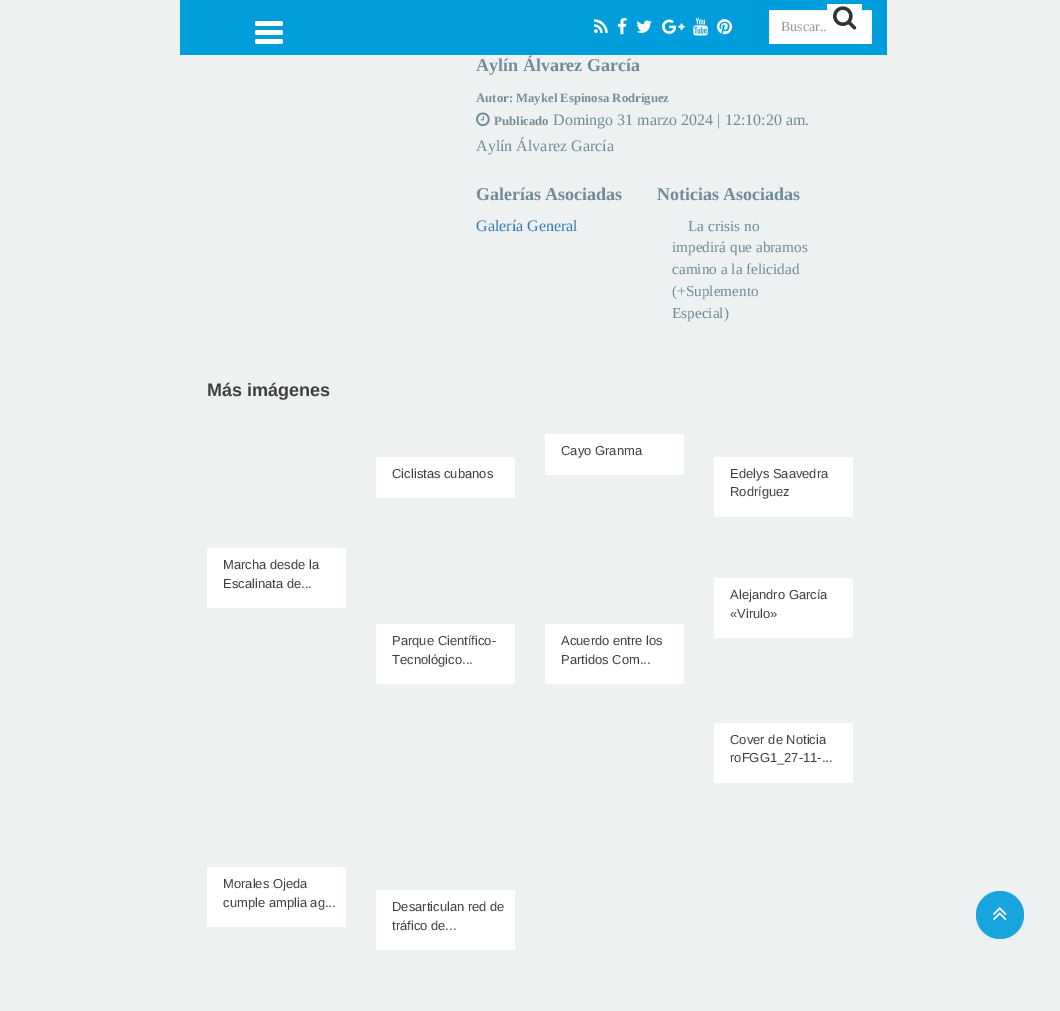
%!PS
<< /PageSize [1060 1011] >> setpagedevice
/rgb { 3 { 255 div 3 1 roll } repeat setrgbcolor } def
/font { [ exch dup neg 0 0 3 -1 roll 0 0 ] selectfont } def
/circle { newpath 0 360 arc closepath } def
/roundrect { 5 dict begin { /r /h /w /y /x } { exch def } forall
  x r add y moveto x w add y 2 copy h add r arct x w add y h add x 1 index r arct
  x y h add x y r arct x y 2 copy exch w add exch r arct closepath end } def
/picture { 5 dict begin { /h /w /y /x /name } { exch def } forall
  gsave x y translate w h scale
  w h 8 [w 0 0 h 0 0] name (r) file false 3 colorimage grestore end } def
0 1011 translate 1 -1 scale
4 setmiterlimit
237 241 242 rgb
0 0 1060 1011 rectfill
0 157 220 rgb
180 0 707 55 rectfill
255 255 255 rgb
255 30 28 5 2 roundrect fill
255 21 28 5 2 roundrect fill
255 39 28 5 2 roundrect fill
(img/1.rgb) 594 19 14 14 picture
(img/2.rgb) 617 17 10 18 picture
(img/3.rgb) 636 20 16 13 picture
(img/4.rgb) 662 19 23 15 picture
(img/5.rgb) 693 17 15 19 picture
(img/6.rgb) 717 19 16 16 picture
[
  [769 11 103 33 255 255 255]
  [769 10 103 1 236 236 236]
  [827 4 35 7 255 255 255]
] { aload pop rgb rectfill } forall
(img/7.rgb) 833 6 24 24 picture
(img/8.rgb) 476 112 14 15 picture
[
  [545 434 139 41 255 255 255]
  [376 457 139 41 255 255 255]
  [714 457 139 60 255 255 255]
  [207 548 139 60 255 255 255]
  [714 578 139 60 255 255 255]
  [376 624 139 60 255 255 255]
  [545 624 139 60 255 255 255]
  [714 723 139 60 255 255 255]
  [207 867 139 60 255 255 255]
  [376 890 139 60 255 255 255]
] { aload pop rgb rectfill } forall
24 165 222 rgb
1000 915 24 circle fill
(img/9.rgb) 993 907 14 14 picture
/LiberationSerif-Regular 14 font
153 153 153 rgb
781 31 moveto (Buscar..) show
/LiberationSerif-Bold 18 font
113 141 152 rgb
476 71 moveto (Aylín Álvarez García) show
/LiberationSerif-Bold 12.75 font
476 102 moveto (Autor: Maykel Espinosa Rodríguez) show
494 125 moveto (Publicado) show
/LiberationSerif-Regular 16 font
553 125 moveto (Domingo 31 marzo 2024 | 12:10:20 am.) show
476 151 moveto (Aylín Álvarez García) show
/LiberationSerif-Bold 18 font
476 200 moveto (Galerías Asociadas) show
/LiberationSerif-Regular 16 font
51 122 183 rgb
476 231 moveto (Galería General) show
/LiberationSerif-Bold 18 font
113 141 152 rgb
657 200 moveto (Noticias Asociadas) show
/LiberationSerif-Regular 15.25 font
[
  [(La crisis no) 688 231]
  [(impedirá que abramos) 672 252]
  [(camino a la felicidad) 672 274]
  [(\(+Suplemento) 672 296]
  [(Especial\)) 672 318]
] { aload pop moveto show } forall
/LiberationSans-Bold 18 font
65 64 64 rgb
207 396 moveto (Más imágenes) show
/LiberationSans-Regular 13 font
[
  [(Cayo Granma) 561 455]
  [(Ciclistas cubanos) 392 478]
  [(Edelys Saavedra) 730 478]
  [(Rodríguez) 730 496]
  [(Marcha desde la) 223 569]
  [(Escalinata de...) 223 588]
  [(Alejandro García) 730 599]
  [(«Virulo») 730 618]
  [(Parque Científico-) 392 645]
  [(Tecnológico...) 392 664]
  [(Acuerdo entre los) 561 645]
  [(Partidos Com...) 561 664]
  [(Cover de Noticia) 730 744]
  [(roFGG1_27-11-...) 730 762]
  [(Morales Ojeda) 223 888]
  [(cumple amplia ag...) 223 907]
  [(Desarticulan red de) 392 911]
  [(tráfico de...) 392 930]
] { aload pop moveto show } forall
showpage
